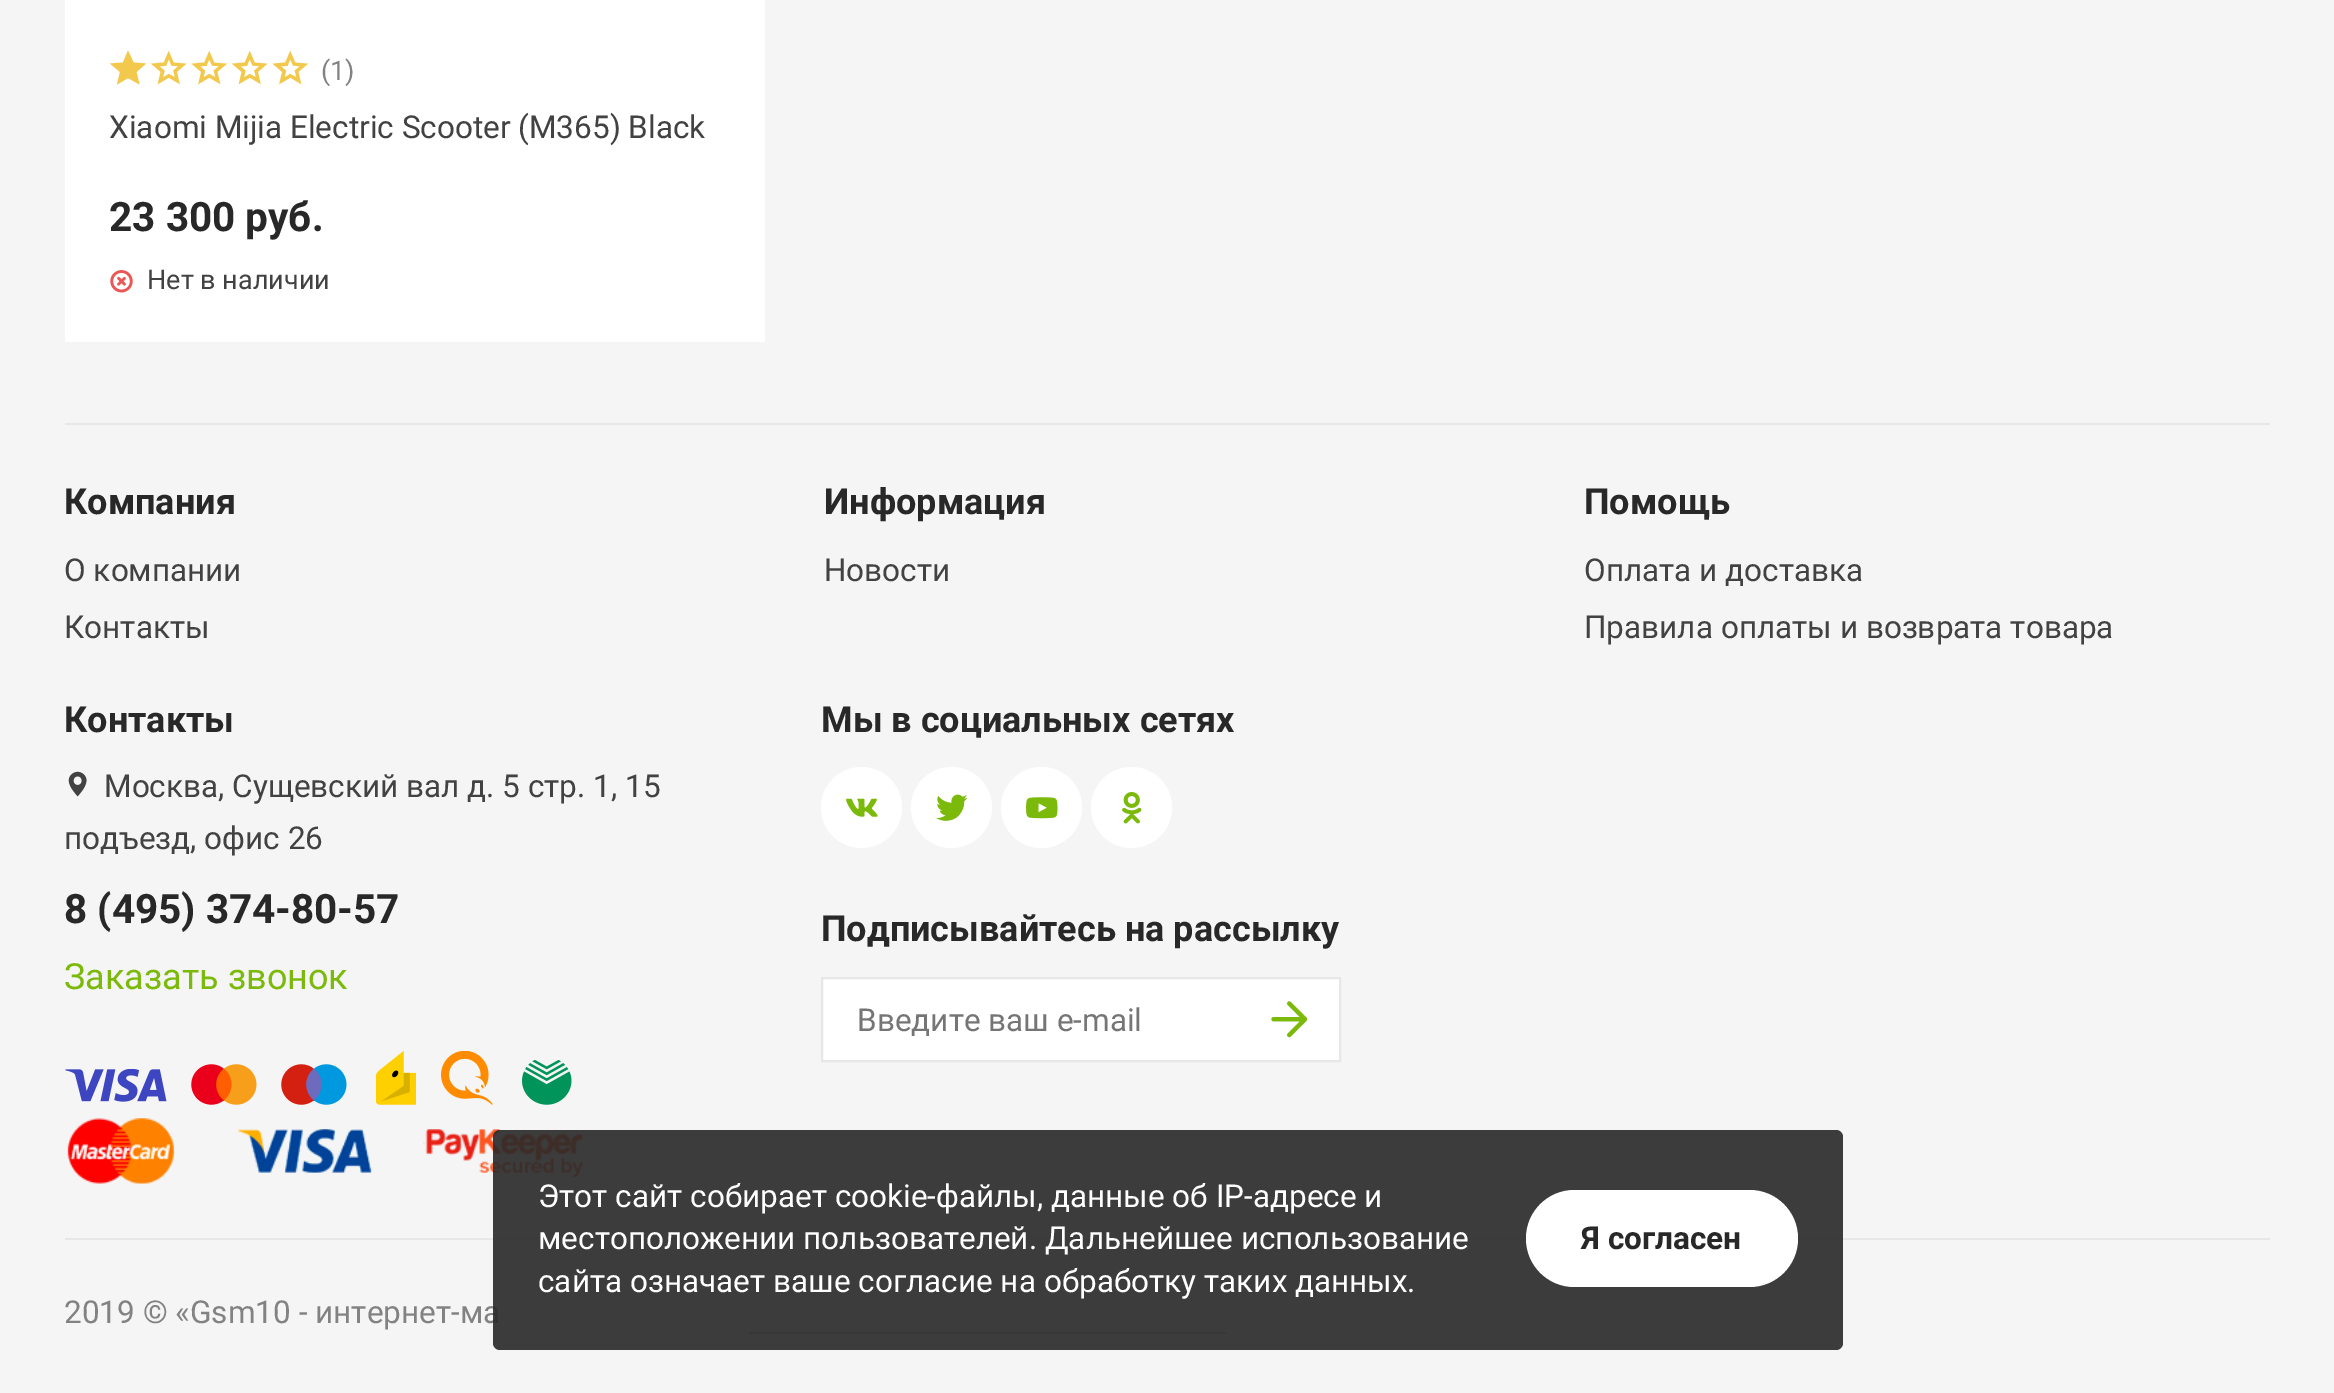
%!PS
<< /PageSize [2334 1393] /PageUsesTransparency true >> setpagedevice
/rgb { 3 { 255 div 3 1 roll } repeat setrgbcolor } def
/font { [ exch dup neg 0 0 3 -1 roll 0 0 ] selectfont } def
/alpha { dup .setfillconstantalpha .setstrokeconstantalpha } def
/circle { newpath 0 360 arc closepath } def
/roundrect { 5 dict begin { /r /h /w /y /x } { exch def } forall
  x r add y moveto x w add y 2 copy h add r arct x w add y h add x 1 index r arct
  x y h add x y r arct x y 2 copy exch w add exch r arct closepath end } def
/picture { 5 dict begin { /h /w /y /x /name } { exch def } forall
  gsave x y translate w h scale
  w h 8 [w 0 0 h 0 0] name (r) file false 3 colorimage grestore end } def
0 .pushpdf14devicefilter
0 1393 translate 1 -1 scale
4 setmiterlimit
245 245 245 rgb
0 0 2334 1393 rectfill
255 255 255 rgb
65 0 700 342 rectfill
242 201 76 rgb
139.5 84.5 moveto 128 78 lineto 117 84.5 lineto 120 72 lineto 110 63.5 lineto 123 62.5 lineto 128 50.5 lineto 133.5 62.5 lineto 146 63.5 lineto 136.5 72 lineto closepath fill
(img/1.rgb) 150 50 37 35 picture
(img/2.rgb) 191 50 37 35 picture
(img/1.rgb) 231 50 37 35 picture
(img/2.rgb) 272 50 37 35 picture
(img/3.rgb) 110 270 23 23 picture
231 231 231 rgb
65 423 2205 2 rectfill
(img/4.rgb) 68 771 19 26 picture
(img/5.rgb) 65 1069 102 33 picture
(img/6.rgb) 191 1064 66 41 picture
(img/7.rgb) 281 1064 66 41 picture
(img/8.rgb) 376 1051 40 54 picture
(img/9.rgb) 441 1051 52 54 picture
(img/10.rgb) 522 1060 50 45 picture
(img/11.rgb) 67 1118 516 66 picture
255 255 255 rgb
861.5 807.5 40.5 circle fill
(img/12.rgb) 846 798 32 19 picture
951.5 807.5 40.5 circle fill
(img/13.rgb) 936 794 32 27 picture
1041.5 807.5 40.5 circle fill
(img/14.rgb) 1026 797 32 22 picture
1131.5 807.5 40.5 circle fill
(img/15.rgb) 1122 792 20 32 picture
822 978 moveto 1340 978 lineto 1340 1061 lineto 822 1061 lineto closepath gsave fill grestore
231 231 231 rgb
2 setlinewidth
stroke
(img/16.rgb) 1271 1001 37 37 picture
65 1238 2205 2 rectfill
189 189 189 rgb
749 1332 477 2 rectfill
/Roboto-Regular 27 font
130 130 130 rgb
321 80 moveto (\(1\)) show
/Roboto-Regular 31.5 font
66 66 66 rgb
109 138 moveto (Xiaomi Mijia Electric Scooter \(M365\) Black) show
/Roboto-Bold 40.5 font
40 40 40 rgb
109 231 moveto (23 300 руб.) show
/Roboto-Regular 27 font
66 66 66 rgb
147 289 moveto (Нет в наличии) show
/Roboto-Bold 36 font
40 40 40 rgb
64 514 moveto (Компания) show
/Roboto-Regular 31.5 font
66 66 66 rgb
64 581 moveto (О компании) show
64 638 moveto (Контакты) show
/Roboto-Bold 36 font
40 40 40 rgb
824 514 moveto (Информация) show
/Roboto-Regular 31.5 font
66 66 66 rgb
824 581 moveto (Новости) show
/Roboto-Bold 36 font
40 40 40 rgb
1584 514 moveto (Помощь) show
/Roboto-Regular 31.5 font
66 66 66 rgb
1584 581 moveto (Оплата и доставка) show
1584 638 moveto (Правила оплаты и возврата товара) show
/Roboto-Bold 36 font
40 40 40 rgb
64 732 moveto (Контакты) show
/Roboto-Regular 31.5 font
66 66 66 rgb
104 797 moveto (Москва, Сущевский вал д. 5 стр. 1, 15) show
64 849 moveto (подъезд, офис 26) show
/Roboto-Bold 40.5 font
40 40 40 rgb
64 923 moveto (8 \(495\) 374-80-57) show
/Roboto-Regular 36 font
123 185 10 rgb
64 989 moveto (Заказать звонок) show
/Roboto-Bold 36 font
40 40 40 rgb
821 732 moveto (Мы в социальных сетях) show
821 941 moveto (Подписывайтесь на рассылку) show
/Roboto-Regular 31.5 font
117 117 117 rgb
857 1031 moveto (Введите ваш e-mail) show
130 130 130 rgb
64 1323 moveto (2019 © «Gsm10 - интернет-ма) show
0.9 alpha
40 40 40 rgb
493 1130 1350 220 7 roundrect fill
1 alpha
255 255 255 rgb
[
  [(Этот сайт собирает cookie-файлы, данные об IP-адресе и) 538 1207]
  [(местоположении пользователей. Дальнейшее использование) 538 1249]
  [(сайта означает ваше согласие на обработку таких данных.) 538 1292]
] { aload pop moveto show } forall
1526 1190 272 97 48.5 roundrect fill
/Roboto-Bold 31.5 font
40 40 40 rgb
1581 1249 moveto (Я согласен) show
.poppdf14devicefilter showpage
